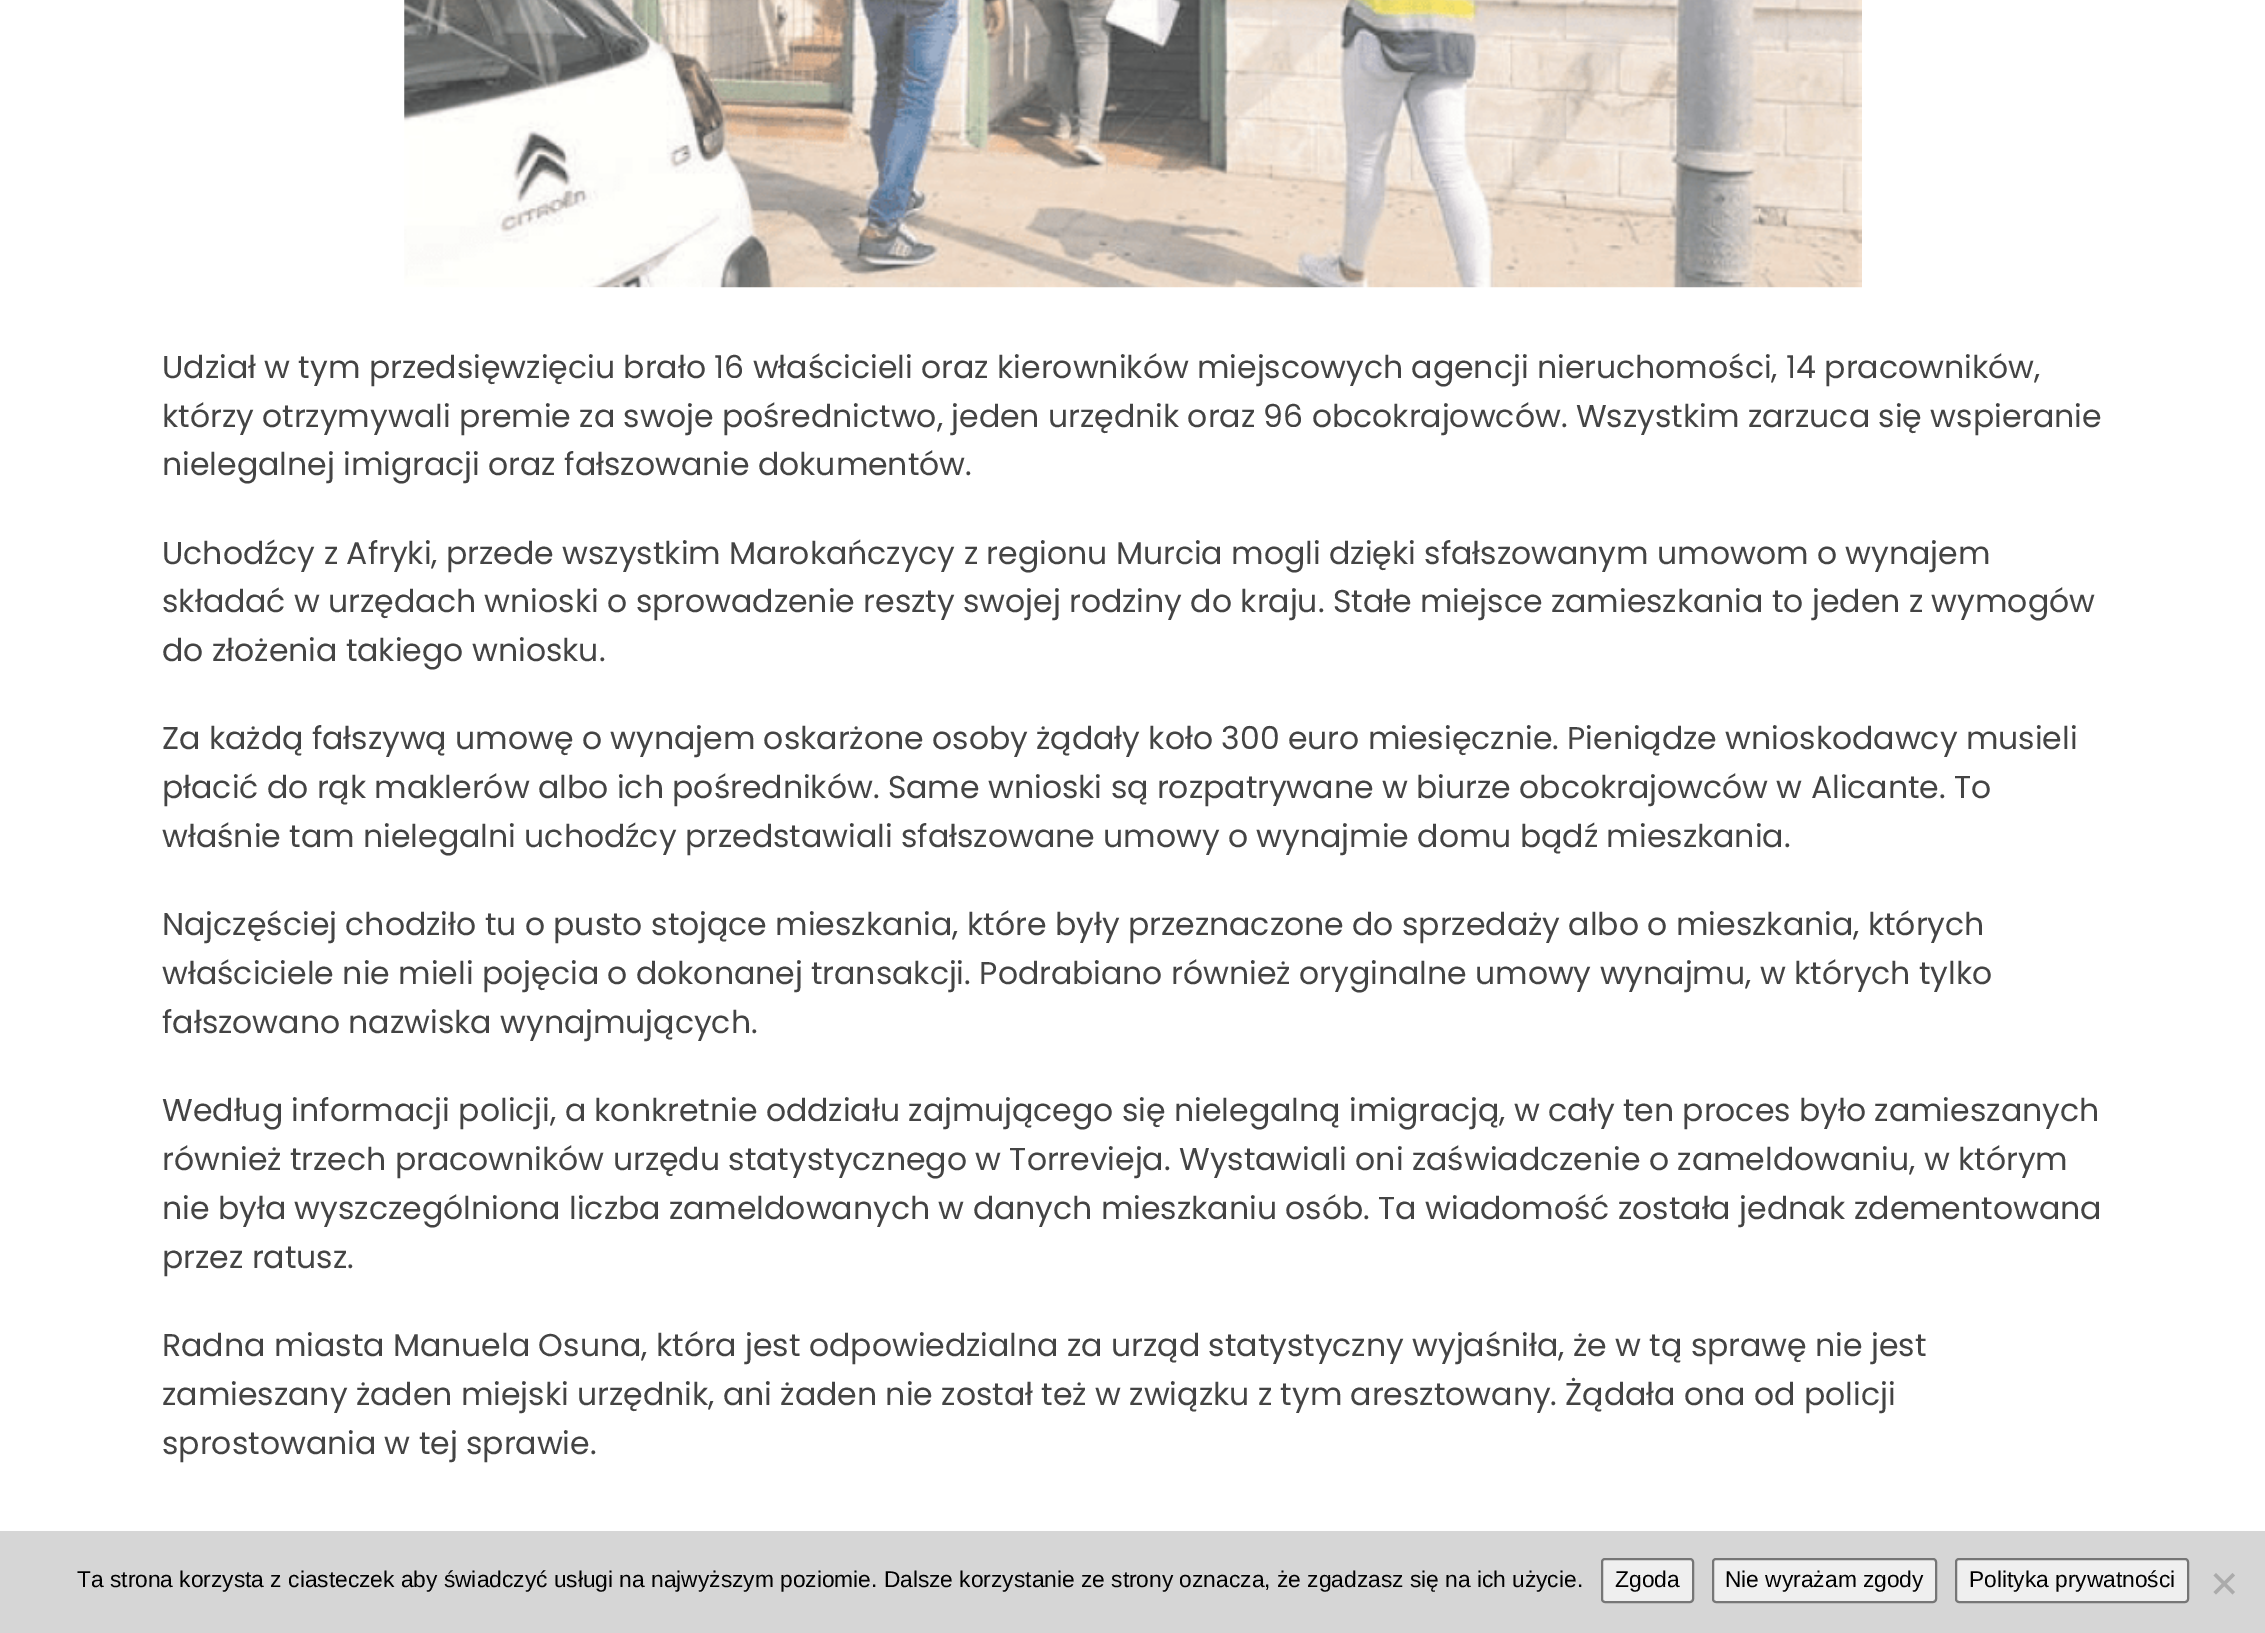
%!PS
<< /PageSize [2265 1633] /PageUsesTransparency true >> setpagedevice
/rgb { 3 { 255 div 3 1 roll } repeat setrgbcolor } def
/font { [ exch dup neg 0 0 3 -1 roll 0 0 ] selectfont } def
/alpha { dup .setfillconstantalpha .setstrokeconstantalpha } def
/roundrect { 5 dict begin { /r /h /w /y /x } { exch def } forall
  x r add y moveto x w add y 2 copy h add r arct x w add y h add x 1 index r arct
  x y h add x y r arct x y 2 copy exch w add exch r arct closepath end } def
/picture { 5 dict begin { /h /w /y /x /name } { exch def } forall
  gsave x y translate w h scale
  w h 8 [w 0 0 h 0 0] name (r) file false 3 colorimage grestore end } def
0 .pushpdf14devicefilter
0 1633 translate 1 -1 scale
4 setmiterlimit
255 255 255 rgb
0 0 2265 1633 rectfill
(img/1.rgb) 404 0 1458 288 picture
0.8 alpha
204 204 204 rgb
0 1531 2265 102 rectfill
1 alpha
239 239 239 rgb
1602 1559 91 43 3 roundrect gsave fill grestore
118 118 118 rgb
2 setlinewidth
stroke
239 239 239 rgb
1713 1559 223 43 3 roundrect gsave fill grestore
118 118 118 rgb
stroke
239 239 239 rgb
1956 1559 232 43 3 roundrect gsave fill grestore
118 118 118 rgb
stroke
171 171 171 rgb
2232.5 1573 moveto 2235 1575.5 lineto 2216 1594.5 lineto 2213.5 1592 lineto closepath fill
2213.5 1575.5 moveto 2216 1573 lineto 2235 1592 lineto 2232.5 1594.5 lineto closepath fill
/Poppins-Regular 31.5 font
68 68 68 rgb
[
  [(Udział w tym przedsięwzięciu brało 16 właścicieli oraz kierowników miejscowych agencji nieruchomości, 14 pracowników,) 162 378]
  [(którzy otrzymywali premie za swoje pośrednictwo, jeden urzędnik oraz 96 obcokrajowców. Wszystkim zarzuca się wspieranie) 162 427]
  [(nielegalnej imigracji oraz fałszowanie dokumentów.) 162 475]
  [(Uchodźcy z Afryki, przede wszystkim Marokańczycy z regionu Murcia mogli dzięki sfałszowanym umowom o wynajem) 162 564]
  [(składać w urzędach wnioski o sprowadzenie reszty swojej rodziny do kraju. Stałe miejsce zamieszkania to jeden z wymogów) 162 612]
  [(do złożenia takiego wniosku.) 162 661]
  [(Za każdą fałszywą umowę o wynajem oskarżone osoby żądały koło 300 euro miesięcznie. Pieniądze wnioskodawcy musieli) 162 749]
  [(płacić do rąk maklerów albo ich pośredników. Same wnioski są rozpatrywane w biurze obcokrajowców w Alicante. To) 162 798]
  [(właśnie tam nielegalni uchodźcy przedstawiali sfałszowane umowy o wynajmie domu bądź mieszkania.) 162 847]
  [(Najczęściej chodziło tu o pusto stojące mieszkania, które były przeznaczone do sprzedaży albo o mieszkania, których) 162 935]
  [(właściciele nie mieli pojęcia o dokonanej transakcji. Podrabiano również oryginalne umowy wynajmu, w których tylko) 162 984]
  [(fałszowano nazwiska wynajmujących.) 162 1033]
  [(Według informacji policji, a konkretnie oddziału zajmującego się nielegalną imigracją, w cały ten proces było zamieszanych) 162 1121]
  [(również trzech pracowników urzędu statystycznego w Torrevieja. Wystawiali oni zaświadczenie o zameldowaniu, w którym) 162 1170]
  [(nie była wyszczególniona liczba zameldowanych w danych mieszkaniu osób. Ta wiadomość została jednak zdementowana) 162 1219]
  [(przez ratusz.) 162 1268]
  [(Radna miasta Manuela Osuna, która jest odpowiedzialna za urząd statystyczny wyjaśniła, że w tą sprawę nie jest) 162 1356]
  [(zamieszany żaden miejski urzędnik, ani żaden nie został też w związku z tym aresztowany. Żądała ona od policji) 162 1405]
  [(sprostowania w tej sprawie.) 162 1454]
] { aload pop moveto show } forall
/LiberationSans-Regular 22.75 font
0 0 0 rgb
[
  [(Ta strona korzysta z ciasteczek aby świadczyć usługi na najwyższym poziomie. Dalsze korzystanie ze strony oznacza, że zgadzasz się na ich użycie.) 77 1587]
  [(Zgoda) 1615 1587]
  [(Nie wyrażam zgody) 1725 1587]
  [(Polityka prywatności) 1969 1587]
] { aload pop moveto show } forall
.poppdf14devicefilter showpage
